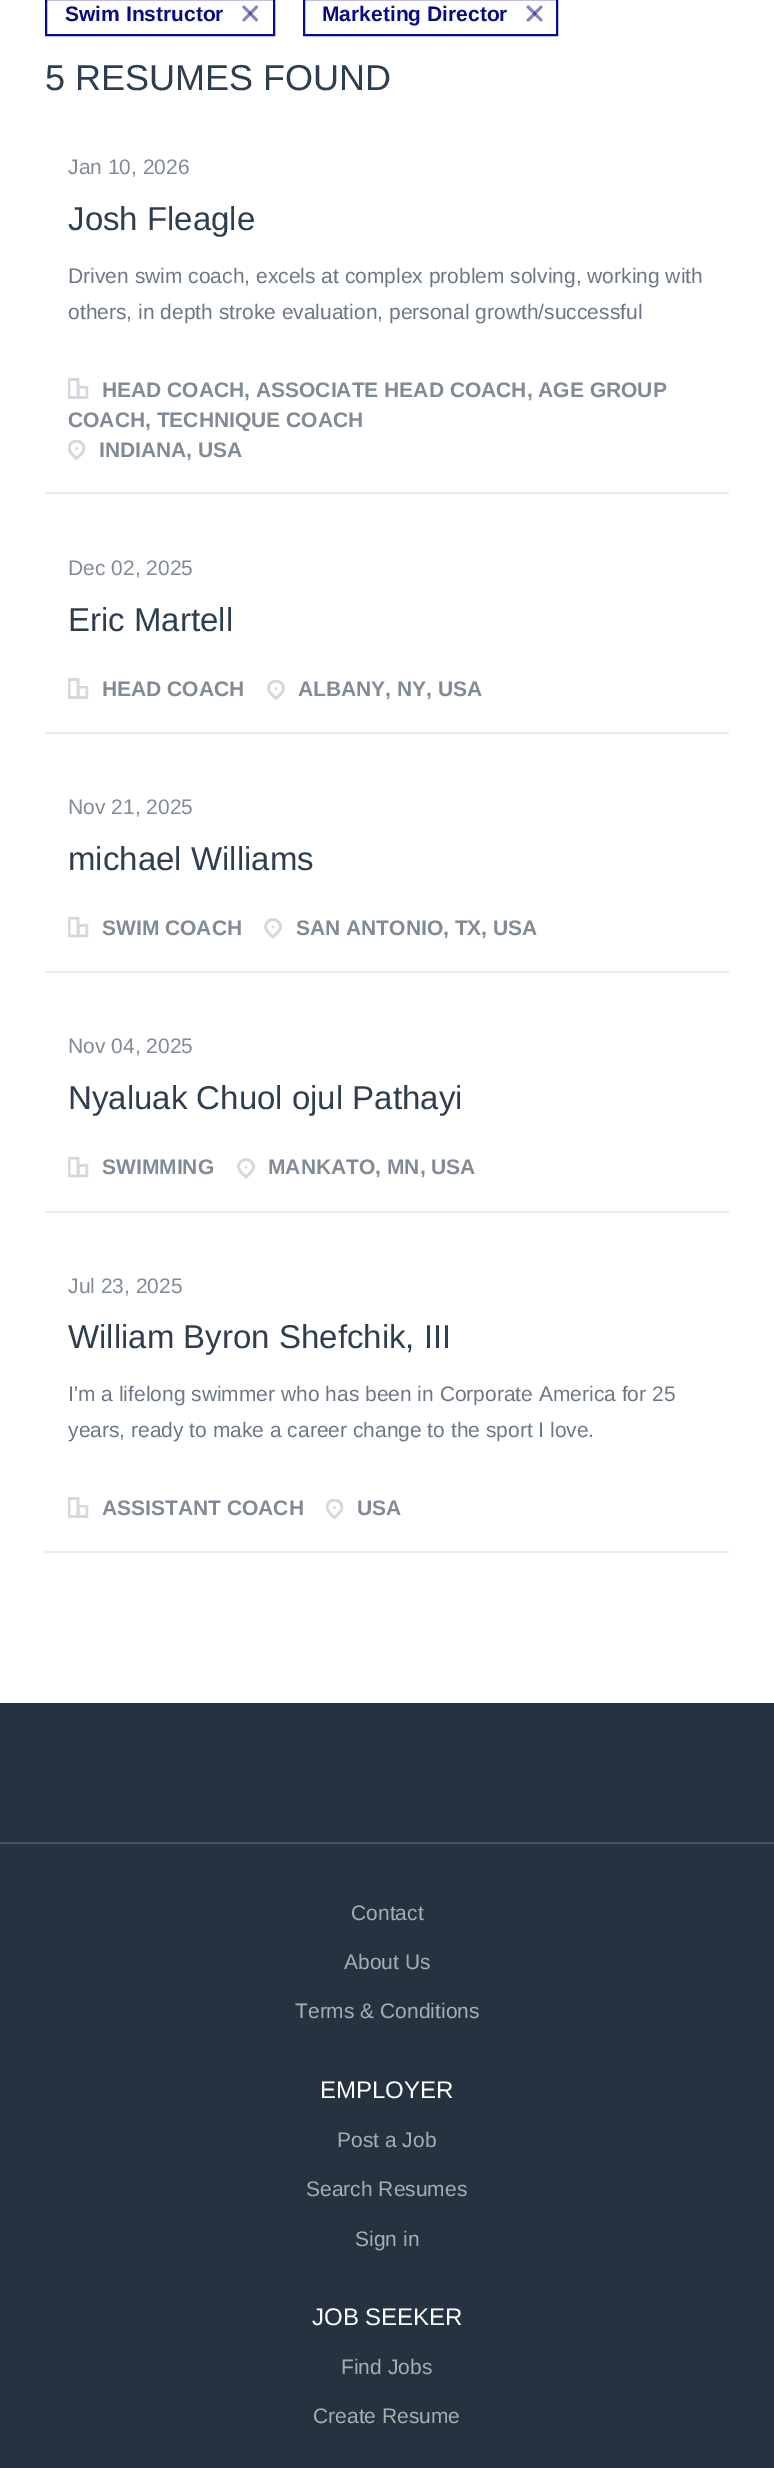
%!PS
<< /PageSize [774 2468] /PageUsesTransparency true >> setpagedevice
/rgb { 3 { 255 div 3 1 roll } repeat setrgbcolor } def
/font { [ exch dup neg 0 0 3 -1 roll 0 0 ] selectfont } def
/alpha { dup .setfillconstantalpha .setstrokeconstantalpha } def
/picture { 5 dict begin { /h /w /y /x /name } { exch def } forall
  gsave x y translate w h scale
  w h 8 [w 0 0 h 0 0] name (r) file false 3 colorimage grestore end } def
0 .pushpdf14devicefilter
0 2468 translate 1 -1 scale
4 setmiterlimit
255 255 255 rgb
0 0 774 2468 rectfill
10 10 135 rgb
2 setlinewidth
46 -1 228 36 rectstroke
133 133 195 rgb
243 19 moveto 255.5 6 lineto 256 5.5 257 5.5 257.5 6 curveto 258 6.5 258 7.5 257.5 8 curveto 245 21 lineto 244.5 21.5 243.5 21.5 243 21 curveto 242 20.5 242 19.5 243 19 curveto closepath fill
0.5 alpha
10 10 135 rgb
245 6 moveto 257.5 19 lineto 258 19.5 258 20.5 257.5 21 curveto 257 21.5 256 21.5 255.5 21 curveto 243 8 lineto 242 7.5 242 6.5 243 6 curveto 243.5 5.5 244.5 5.5 245 6 curveto closepath fill
1 alpha
304 -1 253 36 rectstroke
133 133 195 rgb
527 19 moveto 540 6 lineto 540.5 5.5 541.5 5.5 542 6 curveto 542.5 6.5 542.5 7.5 542 8 curveto 529.5 21 lineto 528.5 21.5 527.5 21.5 527 21 curveto 526.5 20.5 526.5 19.5 527 19 curveto closepath fill
0.5 alpha
10 10 135 rgb
529.5 6 moveto 542 19 lineto 542.5 19.5 542.5 20.5 542 21 curveto 541.5 21.5 540.5 21.5 540 21 curveto 527 8 lineto 526.5 7.5 526.5 6.5 527 6 curveto 527.5 5.5 528.5 5.5 529.5 6 curveto closepath fill
1 alpha
234 235 237 rgb
45 492 684 2 rectfill
(img/1.rgb) 68 378 21 21 picture
(img/2.rgb) 68 440 18 21 picture
45 732 684 2 rectfill
(img/1.rgb) 68 678 21 21 picture
(img/3.rgb) 267 680 18 20 picture
45 971 684 2 rectfill
(img/4.rgb) 68 917 21 21 picture
(img/5.rgb) 264 918 18 21 picture
45 1211 684 2 rectfill
(img/4.rgb) 68 1157 21 21 picture
(img/5.rgb) 237 1158 18 21 picture
45 1551 684 2 rectfill
(img/1.rgb) 68 1497 21 21 picture
(img/2.rgb) 326 1499 18 21 picture
37 50 63 rgb
0 1703 774 765 rectfill
70 81 92 rgb
0 1842 774 2 rectfill
/LiberationSans-Bold 21 font
10 10 135 rgb
65 21 moveto (Swim Instructor) show
322 21 moveto (Marketing Director) show
/LiberationSans-Regular 36 font
45 62 80 rgb
45 90 moveto (5 RESUMES FOUND) show
/LiberationSans-Regular 21 font
129 139 150 rgb
68 174 moveto (Jan 10, 2026) show
/LiberationSans-Regular 33 font
45 62 80 rgb
68 230 moveto (Josh Fleagle) show
/LiberationSans-Regular 21 font
107 119 133 rgb
68 283 moveto (Driven swim coach, excels at complex problem solving, working with) show
68 319 moveto (others, in depth stroke evaluation, personal growth/successful) show
/LiberationSans-Bold 21 font
129 139 150 rgb
[
  [(HEAD COACH, ASSOCIATE HEAD COACH, AGE GROUP) 102 397]
  [(COACH, TECHNIQUE COACH) 68 427]
  [(INDIANA, USA) 99 457]
] { aload pop moveto show } forall
/LiberationSans-Regular 21 font
68 575 moveto (Dec 02, 2025) show
/LiberationSans-Regular 33 font
45 62 80 rgb
68 631 moveto (Eric Martell) show
/LiberationSans-Bold 21 font
129 139 150 rgb
102 696 moveto (HEAD COACH) show
298 696 moveto (ALBANY, NY, USA) show
/LiberationSans-Regular 21 font
68 814 moveto (Nov 21, 2025) show
/LiberationSans-Regular 33 font
45 62 80 rgb
68 870 moveto (michael Williams) show
/LiberationSans-Bold 21 font
129 139 150 rgb
102 935 moveto (SWIM COACH) show
296 935 moveto (SAN ANTONIO, TX, USA) show
/LiberationSans-Regular 21 font
68 1053 moveto (Nov 04, 2025) show
/LiberationSans-Regular 33 font
45 62 80 rgb
68 1109 moveto (Nyaluak Chuol ojul Pathayi) show
/LiberationSans-Bold 21 font
129 139 150 rgb
102 1174 moveto (SWIMMING) show
268 1174 moveto (MANKATO, MN, USA) show
/LiberationSans-Regular 21 font
68 1293 moveto (Jul 23, 2025) show
/LiberationSans-Regular 33 font
45 62 80 rgb
68 1348 moveto (William Byron Shefchik, III) show
/LiberationSans-Regular 21 font
107 119 133 rgb
68 1401 moveto (I'm a lifelong swimmer who has been in Corporate America for 25) show
68 1437 moveto (years, ready to make a career change to the sport I love.) show
/LiberationSans-Bold 21 font
129 139 150 rgb
102 1515 moveto (ASSISTANT COACH) show
357 1515 moveto (USA) show
/LiberationSans-Regular 21 font
168 173 178 rgb
[
  [(Contact) 351 1920]
  [(About Us) 344 1969]
  [(Terms & Conditions) 295 2018]
] { aload pop moveto show } forall
/LiberationSans-Regular 24 font
255 255 255 rgb
320 2098 moveto (EMPLOYER) show
/LiberationSans-Regular 21 font
168 173 178 rgb
[
  [(Post a Job) 337 2147]
  [(Search Resumes) 306 2196]
  [(Sign in) 355 2246]
] { aload pop moveto show } forall
/LiberationSans-Regular 24 font
255 255 255 rgb
312 2325 moveto (JOB SEEKER) show
/LiberationSans-Regular 21 font
168 173 178 rgb
341 2374 moveto (Find Jobs) show
313 2423 moveto (Create Resume) show
.poppdf14devicefilter showpage
